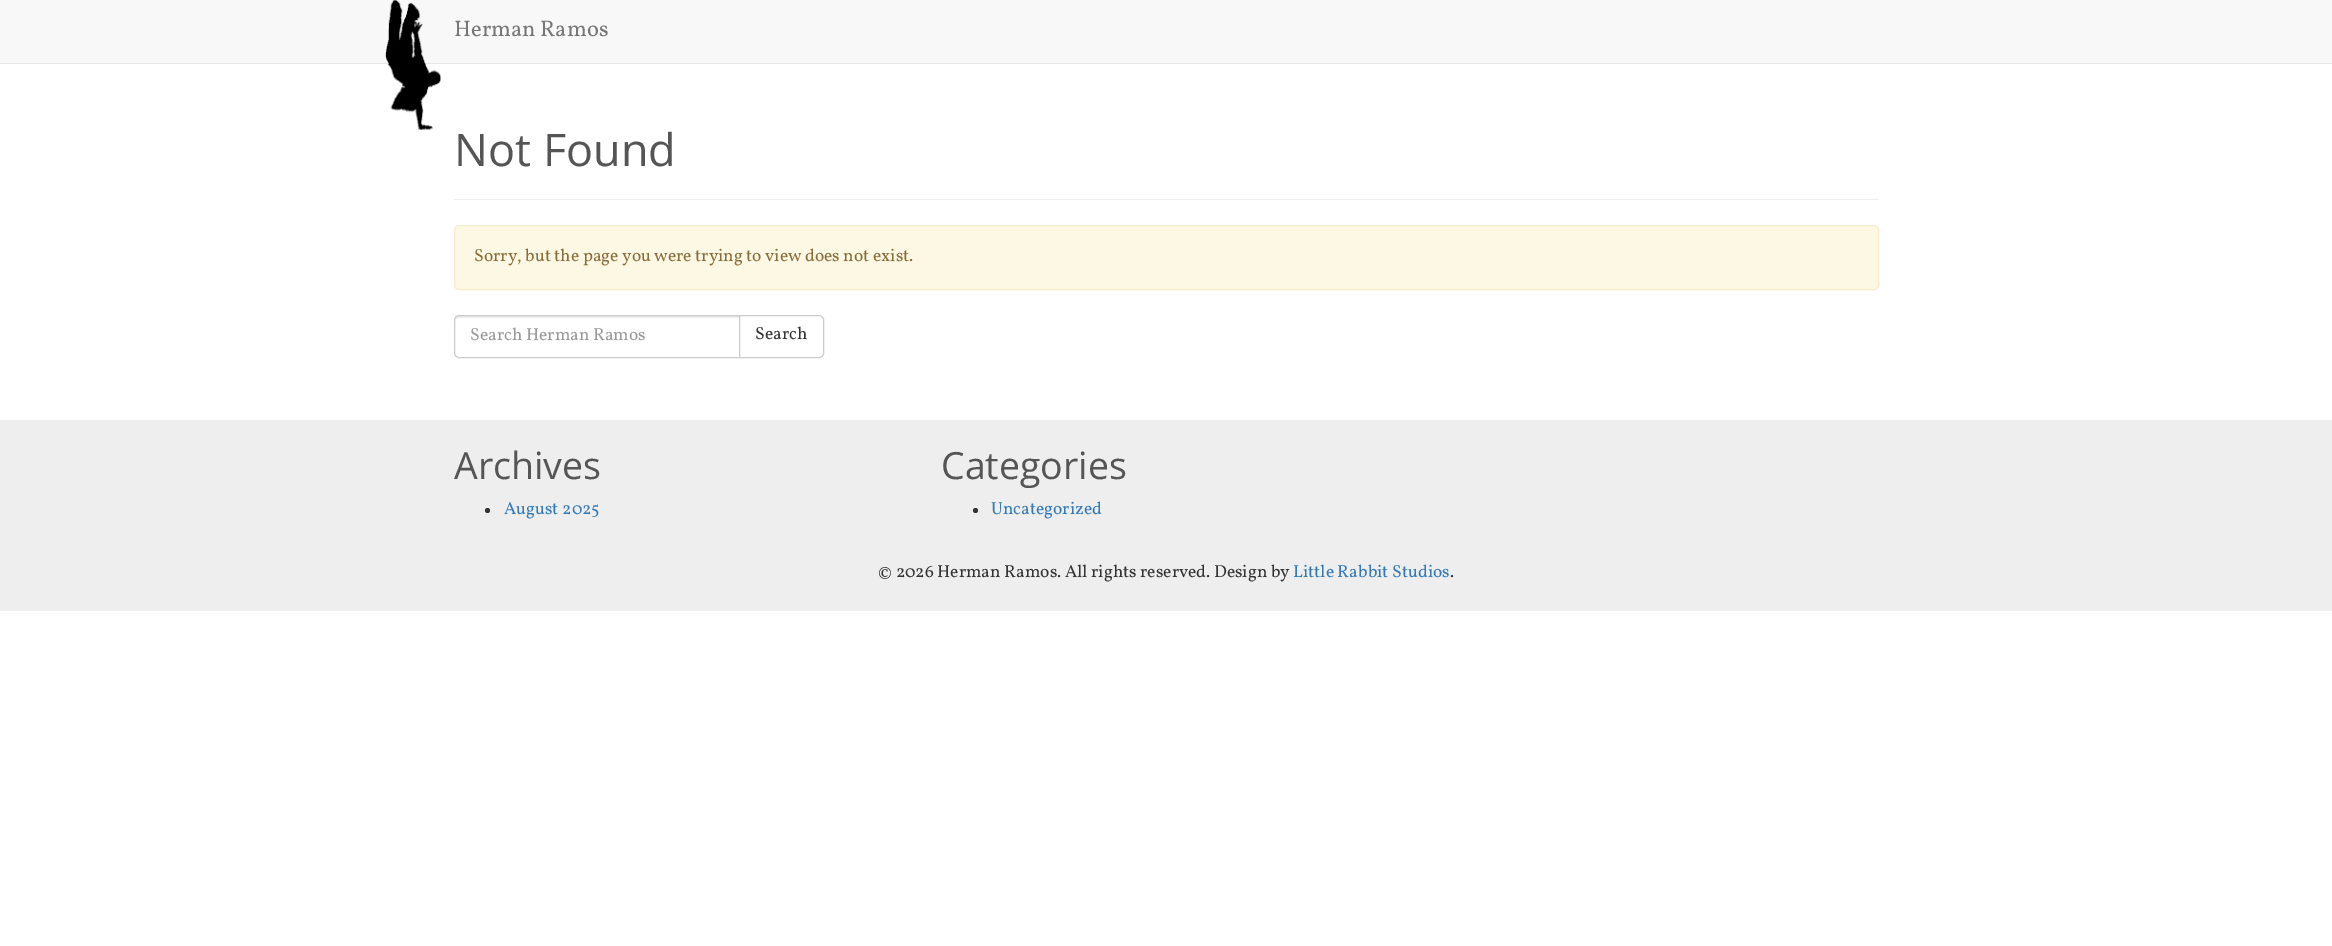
%!PS
<< /PageSize [2332 946] >> setpagedevice
/rgb { 3 { 255 div 3 1 roll } repeat setrgbcolor } def
/font { [ exch dup neg 0 0 3 -1 roll 0 0 ] selectfont } def
/circle { newpath 0 360 arc closepath } def
/roundrect { 5 dict begin { /r /h /w /y /x } { exch def } forall
  x r add y moveto x w add y 2 copy h add r arct x w add y h add x 1 index r arct
  x y h add x y r arct x y 2 copy exch w add exch r arct closepath end } def
/picture { 5 dict begin { /h /w /y /x /name } { exch def } forall
  gsave x y translate w h scale
  w h 8 [w 0 0 h 0 0] name (r) file false 3 colorimage grestore end } def
0 946 translate 1 -1 scale
4 setmiterlimit
255 255 255 rgb
0 0 2332 946 rectfill
248 248 248 rgb
0 0 2332 63 rectfill
231 231 231 rgb
0 63 2332 1 rectfill
(img/1.rgb) 385 0 56 130 picture
238 238 238 rgb
454 199 1425 1 rectfill
252 248 227 rgb
454.5 225.5 1424 64 4.5 roundrect gsave fill grestore
250 235 204 rgb
stroke
236 236 236 rgb
459 318 moveto 739 318 lineto 739 316 lineto 459 316 lineto 456 316 455 318 455 321 curveto 455 319 457 318 459 318 curveto closepath fill
204 204 204 rgb
459 315.5 moveto 739.5 315.5 lineto 739.5 357.5 lineto 459 357.5 lineto 456.5 357.5 454.5 355.5 454.5 353 curveto 454.5 320 lineto 454.5 317.5 456.5 315.5 459 315.5 curveto closepath stroke
255 255 255 rgb
739.5 315.5 moveto 819 315.5 lineto 821.5 315.5 823.5 317.5 823.5 320 curveto 823.5 353 lineto 823.5 355.5 821.5 357.5 819 357.5 curveto 739.5 357.5 lineto closepath gsave fill grestore
204 204 204 rgb
stroke
238 238 238 rgb
0 420 2332 191 rectfill
51 51 51 rgb
487.5 510.5 2.5 circle fill
975.5 510.5 2.5 circle fill
/Vollkorn-Regular 22.5 font
119 119 119 rgb
454 36 moveto (Herman Ramos) show
/OpenSans-Regular 45 font
85 85 85 rgb
454 166 moveto (Not Found) show
/Vollkorn-Regular 17.5 font
138 109 59 rgb
474 261 moveto (Sorry, but the page you were trying to view does not exist.) show
153 153 153 rgb
470 340 moveto (Search Herman Ramos) show
51 51 51 rgb
755 339 moveto (Search) show
/OpenSans-Regular 37.5 font
85 85 85 rgb
454 479 moveto (Archives) show
/Vollkorn-Regular 17.5 font
51 122 183 rgb
504 514 moveto (August 2025) show
/OpenSans-Regular 37.5 font
85 85 85 rgb
941 479 moveto (Categories) show
/Vollkorn-Regular 17.5 font
51 122 183 rgb
991 514 moveto (Uncategorized) show
51 51 51 rgb
878 577 moveto (© 2026 Herman Ramos. All rights reserved. Design by) show
51 122 183 rgb
1293 577 moveto (Little Rabbit Studios) show
51 51 51 rgb
1450 577 moveto (.) show
showpage
